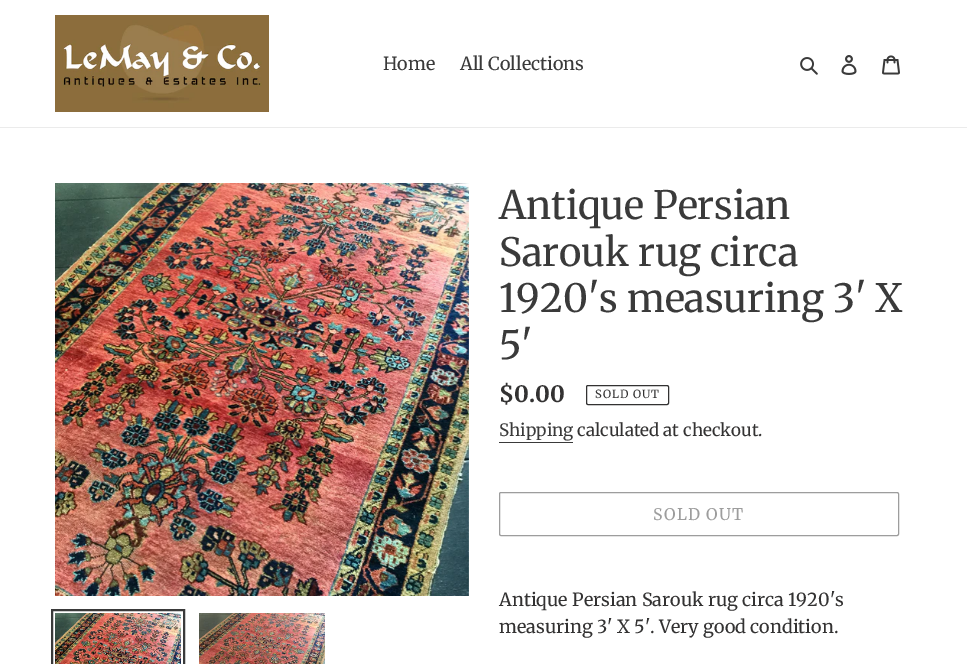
%!PS
<< /PageSize [967 664] >> setpagedevice
/rgb { 3 { 255 div 3 1 roll } repeat setrgbcolor } def
/font { [ exch dup neg 0 0 3 -1 roll 0 0 ] selectfont } def
/roundrect { 5 dict begin { /r /h /w /y /x } { exch def } forall
  x r add y moveto x w add y 2 copy h add r arct x w add y h add x 1 index r arct
  x y h add x y r arct x y 2 copy exch w add exch r arct closepath end } def
/picture { 5 dict begin { /h /w /y /x /name } { exch def } forall
  gsave x y translate w h scale
  w h 8 [w 0 0 h 0 0] name (r) file false 3 colorimage grestore end } def
0 664 translate 1 -1 scale
4 setmiterlimit
255 255 255 rgb
0 0 967 664 rectfill
235 235 235 rgb
0 127 967 1 rectfill
(img/1.rgb) 55 15 214 97 picture
(img/2.rgb) 800 57 18 18 picture
(img/3.rgb) 841 55 16 20 picture
(img/4.rgb) 882 55 18 20 picture
(img/5.rgb) 55 183 414 413 picture
58 58 58 rgb
2 setlinewidth
52 610 132 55 rectstroke
(img/6.rgb) 55 613 126 51 picture
(img/7.rgb) 199 613 126 51 picture
51 50 50 rgb
1 setlinewidth
586.5 385.5 82 19 1.5 roundrect stroke
58 58 58 rgb
499 442 74 1 rectfill
157 157 157 rgb
499.5 492.5 399 43 1.5 roundrect stroke
/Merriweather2-Regular 18 font
58 58 58 rgb
383 70 moveto (Home) show
460 70 moveto (All Collections) show
/Merriweather-Regular 39 font
[
  [(Antique Persian) 499 219]
  [(Sarouk rug circa) 499 266]
  [(1920's measuring 3' X) 499 312]
  [(5') 499 359]
] { aload pop moveto show } forall
/Merriweather-Bold 22.5 font
51 50 50 rgb
499 402 moveto ($0.00) show
/Merriweather2-Regular 11.25 font
595 398 moveto 1 0 (SOLD OUT) ashow
/Merriweather2-Regular 17 font
58 58 58 rgb
499 436 moveto (Shipping) show
51 50 50 rgb
577 436 moveto (calculated at checkout.) show
/Merriweather2-Regular 16 font
157 157 157 rgb
653 520 moveto 1.25 0 (SOLD OUT) ashow
/Merriweather2-Regular 18 font
51 50 50 rgb
499 606 moveto (Antique Persian Sarouk rug circa 1920's) show
499 633 moveto (measuring 3' X 5'. Very good condition.) show
showpage
